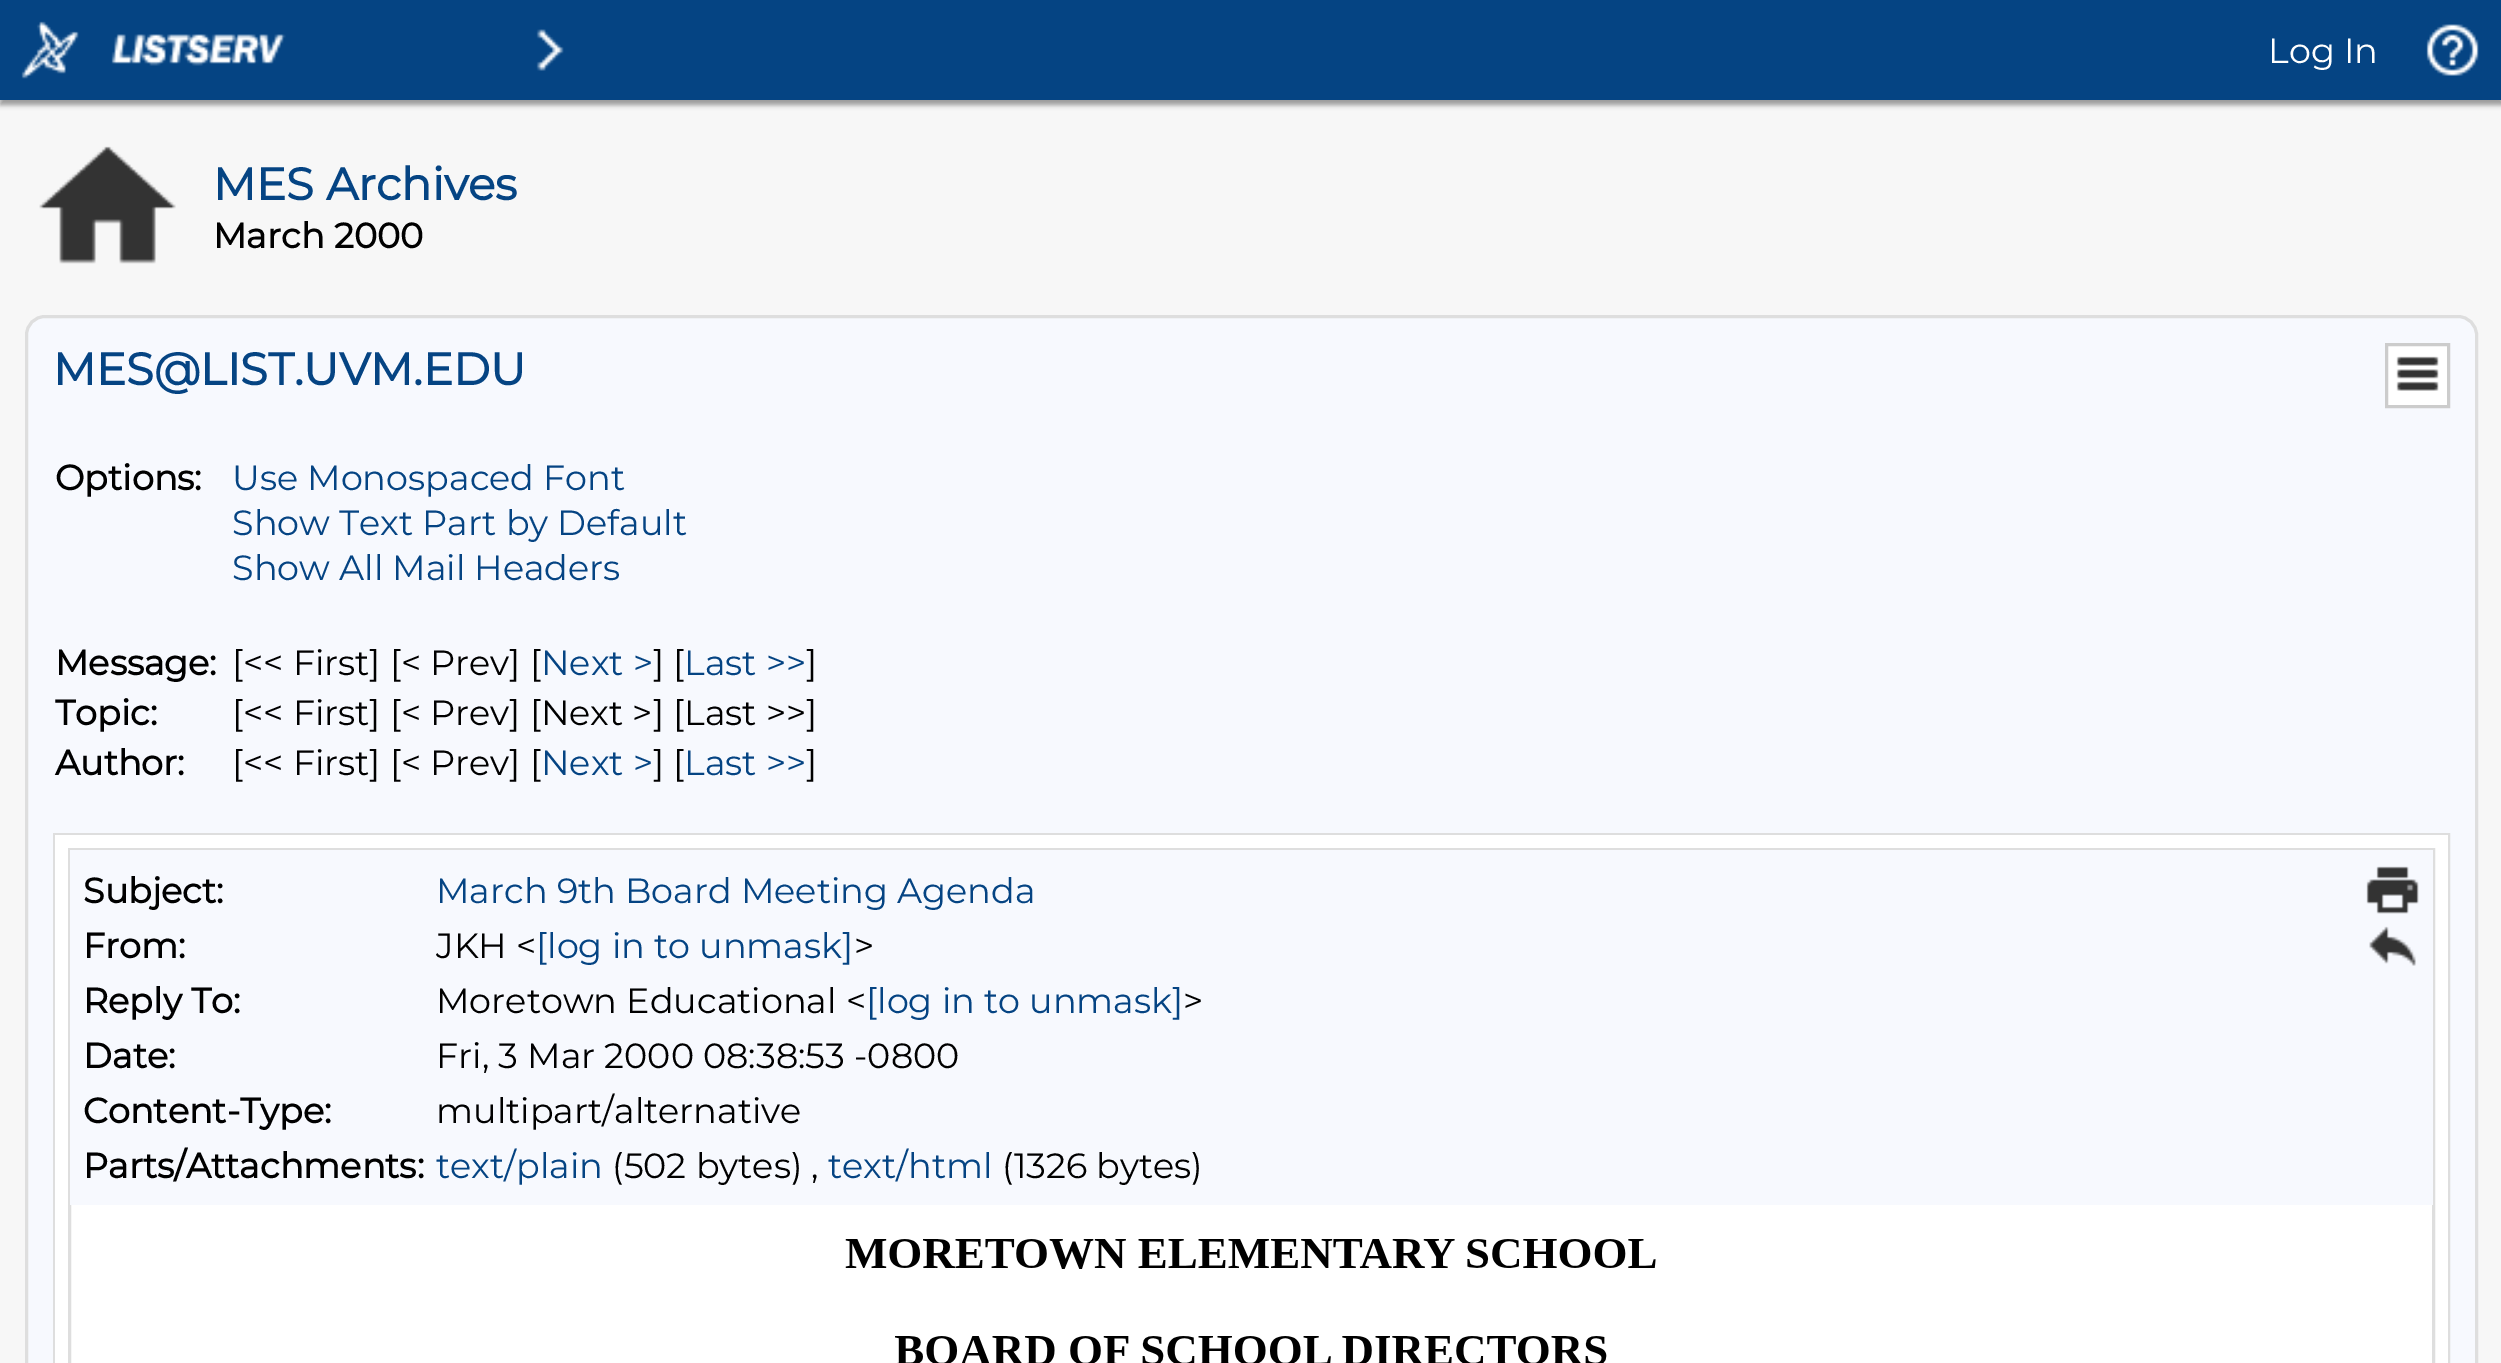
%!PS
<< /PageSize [2501 1363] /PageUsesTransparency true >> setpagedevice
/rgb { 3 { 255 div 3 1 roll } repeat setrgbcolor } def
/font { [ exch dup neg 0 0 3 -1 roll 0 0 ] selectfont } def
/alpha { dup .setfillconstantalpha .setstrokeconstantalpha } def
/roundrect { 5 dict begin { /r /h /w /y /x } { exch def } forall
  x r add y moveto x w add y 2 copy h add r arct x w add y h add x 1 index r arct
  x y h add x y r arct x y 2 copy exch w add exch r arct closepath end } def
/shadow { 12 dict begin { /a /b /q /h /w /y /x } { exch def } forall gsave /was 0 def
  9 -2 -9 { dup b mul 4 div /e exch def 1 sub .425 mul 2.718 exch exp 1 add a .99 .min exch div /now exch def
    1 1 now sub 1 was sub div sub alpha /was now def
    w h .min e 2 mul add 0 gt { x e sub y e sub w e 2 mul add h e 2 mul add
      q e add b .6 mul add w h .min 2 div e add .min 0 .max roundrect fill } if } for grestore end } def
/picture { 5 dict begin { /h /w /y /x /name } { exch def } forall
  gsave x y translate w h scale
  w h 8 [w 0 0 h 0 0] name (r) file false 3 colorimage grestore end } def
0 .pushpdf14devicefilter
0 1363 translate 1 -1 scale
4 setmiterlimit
247 247 247 rgb
0 0 2501 1363 rectfill
153 153 153 rgb
0 5 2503 100 0 2.5 1 shadow
5 68 131 rgb
0 0 2501 100 rectfill
(img/1.rgb) 21 21 58 58 picture
(img/2.rgb) 111 34 175 32 picture
(img/3.rgb) 536 29 28 42 picture
(img/4.rgb) 2426 24 53 52 picture
(img/5.rgb) 39 146 137 118 picture
247 249 254 rgb
26.5 316.5 2450 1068 18.5 roundrect gsave fill grestore
222 222 222 rgb
3 setlinewidth
stroke
255 255 255 rgb
2386.5 344.5 moveto 2448.5 344.5 lineto 2448.5 406.5 lineto 2386.5 406.5 lineto closepath gsave fill grestore
204 204 204 rgb
stroke
(img/6.rgb) 2396 356 43 35 picture
222 222 222 rgb
54.5 834.5 2394 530 rectstroke
255 255 255 rgb
55 835 2393 528 rectfill
222 222 222 rgb
69.5 849.5 2364 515 rectstroke
247 249 254 rgb
70 850 2363 355 rectfill
(img/7.rgb) 2366 866 53 48 picture
(img/8.rgb) 2369 926 47 40 picture
(img/9.rgb) 845 1239 811 124 picture
/Montserrat-Thin 35 font
255 255 255 rgb
2268 63 moveto (Log In) show
/Montserrat-Bold 45 font
5 68 131 rgb
213 200 moveto (MES Archives) show
/Montserrat-Bold 35 font
0 0 0 rgb
213 248 moveto (March 2000) show
/Montserrat-Bold 45 font
5 68 131 rgb
53 385 moveto (MES@LIST.UVM.EDU) show
/Montserrat-Bold 35 font
0 0 0 rgb
55 490 moveto (Options:) show
/Montserrat-Thin 35 font
5 68 131 rgb
[
  [(Use Monospaced Font) 232 490]
  [(Show Text Part by Default) 232 535]
  [(Show All Mail Headers) 232 580]
] { aload pop moveto show } forall
/Montserrat-Bold 35 font
0 0 0 rgb
55 675 moveto (Message:) show
/Montserrat-Thin 35 font
232 675 moveto ([<< First] [< Prev] [) show
5 68 131 rgb
541 675 moveto (Next >) show
0 0 0 rgb
653 675 moveto (] [) show
5 68 131 rgb
684 675 moveto (Last >>) show
0 0 0 rgb
806 675 moveto (]) show
/Montserrat-Bold 35 font
55 725 moveto (Topic:) show
/Montserrat-Thin 35 font
232 725 moveto ([<< First] [< Prev] [Next >] [Last >>]) show
/Montserrat-Bold 35 font
55 775 moveto (Author:) show
/Montserrat-Thin 35 font
232 775 moveto ([<< First] [< Prev] [) show
5 68 131 rgb
541 775 moveto (Next >) show
0 0 0 rgb
653 775 moveto (] [) show
5 68 131 rgb
684 775 moveto (Last >>) show
0 0 0 rgb
806 775 moveto (]) show
/Montserrat-Bold 35 font
83 903 moveto (Subject:) show
/Montserrat-Thin 35 font
5 68 131 rgb
436 903 moveto (March 9th Board Meeting Agenda) show
/Montserrat-Bold 35 font
0 0 0 rgb
83 958 moveto (From:) show
/Montserrat-Thin 35 font
436 958 moveto (JKH <) show
5 68 131 rgb
536 958 moveto ([log in to unmask]) show
0 0 0 rgb
854 958 moveto (>) show
/Montserrat-Bold 35 font
83 1013 moveto (Reply To:) show
/Montserrat-Thin 35 font
436 1013 moveto (Moretown Educational <) show
5 68 131 rgb
866 1013 moveto ([log in to unmask]) show
0 0 0 rgb
1183 1013 moveto (>) show
/Montserrat-Bold 35 font
83 1068 moveto (Date:) show
/Montserrat-Thin 35 font
436 1068 moveto (Fri, 3 Mar 2000 08:38:53 -0800) show
/Montserrat-Bold 35 font
83 1123 moveto (Content-Type:) show
/Montserrat-Thin 35 font
436 1123 moveto (multipart/alternative) show
/Montserrat-Bold 35 font
83 1178 moveto (Parts/Attachments:) show
/Montserrat-Thin 35 font
5 68 131 rgb
436 1178 moveto (text/plain) show
0 0 0 rgb
612 1178 moveto (\(502 bytes\) ,) show
5 68 131 rgb
828 1178 moveto (text/html) show
0 0 0 rgb
1002 1178 moveto (\(1326 bytes\)) show
.poppdf14devicefilter showpage
